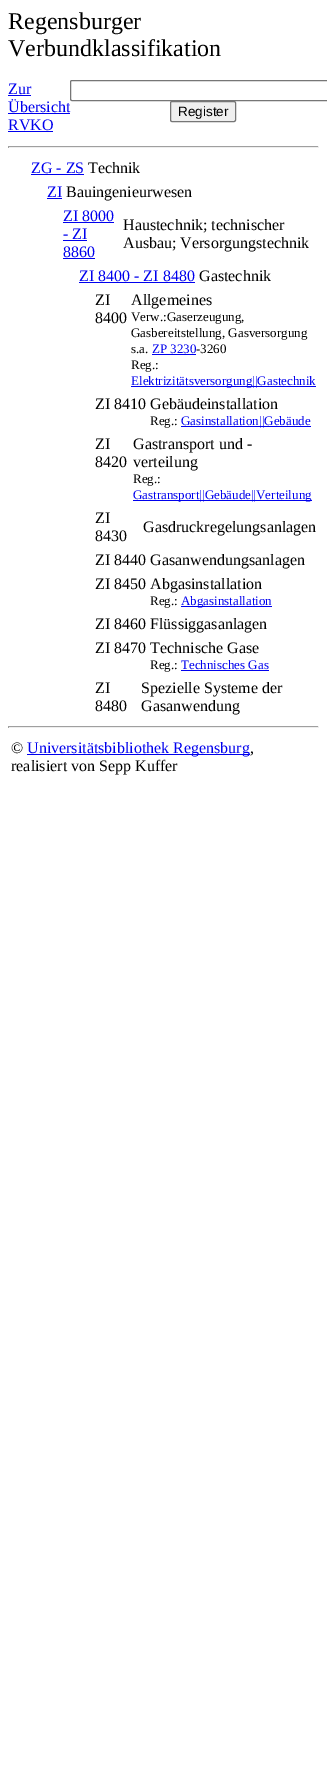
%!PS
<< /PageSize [327 1778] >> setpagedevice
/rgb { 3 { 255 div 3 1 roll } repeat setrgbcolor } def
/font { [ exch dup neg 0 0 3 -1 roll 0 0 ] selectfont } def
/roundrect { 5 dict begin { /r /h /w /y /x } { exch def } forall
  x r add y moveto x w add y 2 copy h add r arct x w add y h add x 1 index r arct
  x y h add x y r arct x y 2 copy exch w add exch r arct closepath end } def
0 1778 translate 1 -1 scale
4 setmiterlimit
255 255 255 rgb
0 0 327 1778 rectfill
[
  [8 95 23 1 0 0 238]
  [8 113 62 1 0 0 238]
  [8 131 45 1 0 0 238]
] { aload pop rgb rectfill } forall
239 239 239 rgb
170.5 101.5 65 20 1.5 roundrect gsave fill grestore
118 118 118 rgb
stroke
[
  [8 146 311 1 159 159 159]
  [318 146 1 2 238 238 238]
  [8 147 311 1 238 238 238]
  [8 146 1 2 159 159 159]
  [31 174 53 1 0 0 238]
  [47 198 15 1 0 0 238]
  [63 222 51 1 0 0 238]
  [63 240 24 1 0 0 238]
  [63 258 32 1 0 0 238]
  [79 282 116 1 0 0 238]
  [152 354 44 1 0 0 238]
  [131 386 185 1 0 0 238]
  [181 426 130 1 0 0 238]
  [133 500 179 1 0 0 238]
  [181 606 91 1 0 0 238]
  [181 670 88 1 0 0 238]
  [8 726 311 1 159 159 159]
  [318 726 1 2 238 238 238]
  [8 727 311 1 238 238 238]
  [8 726 1 2 159 159 159]
  [27 754 223 1 0 0 238]
] { aload pop rgb rectfill } forall
/LiberationSerif-Regular 24 font
0 0 0 rgb
8 29 moveto (Regensburger) show
8 56 moveto (Verbundklassifikation) show
/LiberationSerif-Regular 16 font
0 0 238 rgb
[
  [(Zur) 8 94]
  [(Übersicht) 8 112]
  [(RVKO) 8 130]
] { aload pop moveto show } forall
118 118 118 rgb
70.5 80.5 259 20 1.5 roundrect stroke
/LiberationSans-Regular 13.5 font
0 0 0 rgb
178 116 moveto (Register) show
/LiberationSerif-Regular 16 font
0 0 238 rgb
31 173 moveto (ZG - ZS) show
0 0 0 rgb
88 173 moveto (Technik) show
0 0 238 rgb
47 197 moveto (ZI) show
0 0 0 rgb
66 197 moveto (Bauingenieurwesen) show
0 0 238 rgb
[
  [(ZI 8000) 63 221]
  [(- ZI) 63 239]
  [(8860) 63 257]
] { aload pop moveto show } forall
0 0 0 rgb
123 230 moveto (Haustechnik; technischer) show
123 248 moveto (Ausbau; Versorgungstechnik) show
0 0 238 rgb
79 281 moveto (ZI 8400 - ZI 8480) show
0 0 0 rgb
[
  [(Gastechnik) 199 281]
  [(ZI) 95 305]
  [(8400) 95 323]
  [(Allgemeines) 131 305]
] { aload pop moveto show } forall
/LiberationSerif-Regular 13 font
[
  [(Verw.:Gaserzeugung,) 131 321]
  [(Gasbereitstellung, Gasversorgung) 131 337]
  [(s.a.) 131 353]
] { aload pop moveto show } forall
0 0 238 rgb
152 353 moveto (ZP 3230) show
0 0 0 rgb
196 353 moveto (-3260) show
131 369 moveto (Reg.:) show
0 0 238 rgb
131 385 moveto (Elektrizitätsversorgung||Gastechnik) show
/LiberationSerif-Regular 16 font
0 0 0 rgb
95 409 moveto (ZI 8410 Gebäudeinstallation) show
/LiberationSerif-Regular 13 font
150 425 moveto (Reg.:) show
0 0 238 rgb
181 425 moveto (Gasinstallation||Gebäude) show
/LiberationSerif-Regular 16 font
0 0 0 rgb
[
  [(ZI) 95 449]
  [(8420) 95 467]
  [(Gastransport und -) 133 449]
  [(verteilung) 133 467]
] { aload pop moveto show } forall
/LiberationSerif-Regular 13 font
133 483 moveto (Reg.:) show
0 0 238 rgb
133 499 moveto (Gastransport||Gebäude||Verteilung) show
/LiberationSerif-Regular 16 font
0 0 0 rgb
[
  [(ZI) 95 523]
  [(8430) 95 541]
  [(Gasdruckregelungsanlagen) 143 532]
  [(ZI 8440 Gasanwendungsanlagen) 95 565]
  [(ZI 8450 Abgasinstallation) 95 589]
] { aload pop moveto show } forall
/LiberationSerif-Regular 13 font
150 605 moveto (Reg.:) show
0 0 238 rgb
181 605 moveto (Abgasinstallation) show
/LiberationSerif-Regular 16 font
0 0 0 rgb
95 629 moveto (ZI 8460 Flüssiggasanlagen) show
95 653 moveto (ZI 8470 Technische Gase) show
/LiberationSerif-Regular 13 font
150 669 moveto (Reg.:) show
0 0 238 rgb
181 669 moveto (Technisches Gas) show
/LiberationSerif-Regular 16 font
0 0 0 rgb
[
  [(ZI) 95 693]
  [(8480) 95 711]
  [(Spezielle Systeme der) 141 693]
  [(Gasanwendung) 141 711]
  [(©) 11 753]
] { aload pop moveto show } forall
0 0 238 rgb
27 753 moveto (Universitätsbibliothek Regensburg) show
0 0 0 rgb
250 753 moveto (,) show
11 771 moveto (realisiert von Sepp Kuffer) show
showpage
